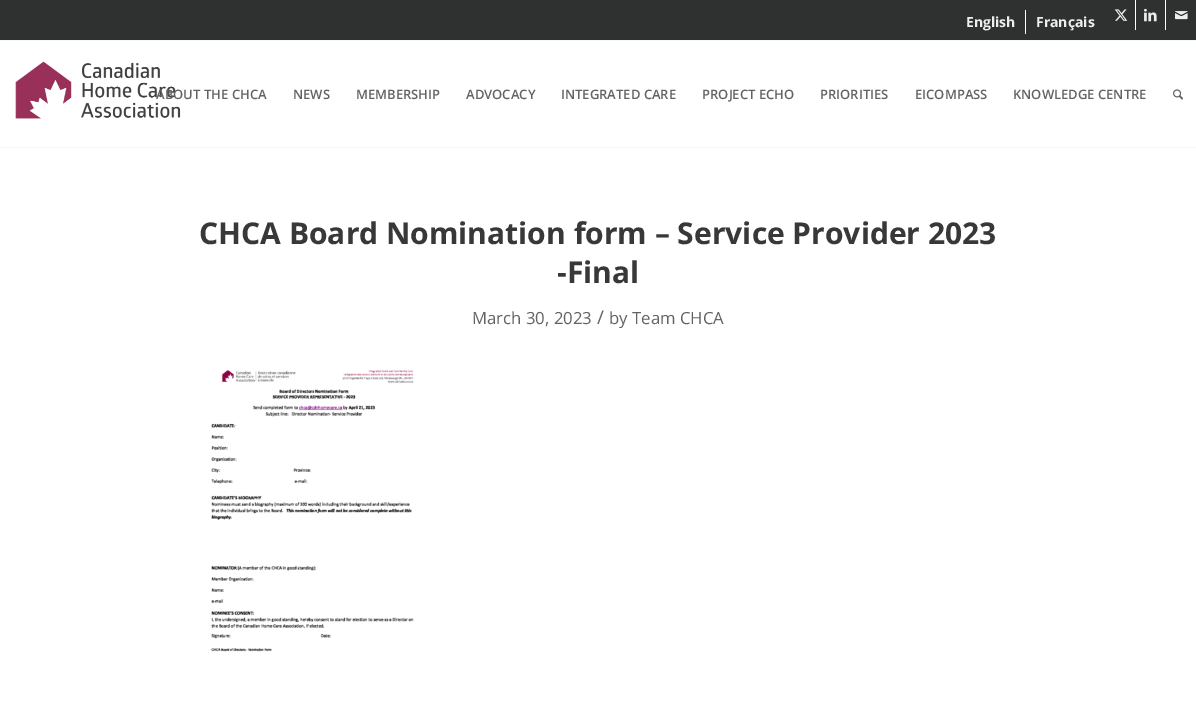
%!PS
<< /PageSize [1196 727] >> setpagedevice
/rgb { 3 { 255 div 3 1 roll } repeat setrgbcolor } def
/font { [ exch dup neg 0 0 3 -1 roll 0 0 ] selectfont } def
/picture { 5 dict begin { /h /w /y /x /name } { exch def } forall
  gsave x y translate w h scale
  w h 8 [w 0 0 h 0 0] name (r) file false 3 colorimage grestore end } def
0 727 translate 1 -1 scale
4 setmiterlimit
255 255 255 rgb
0 0 1196 727 rectfill
[
  [0 40 1196 1 248 248 248]
  [0 0 1196 40 47 48 48]
  [1025 10 1 24 255 255 255]
  [1135 0 1 30 255 255 255]
] { aload pop rgb rectfill } forall
(img/1.rgb) 1114 9 14 12 picture
1165 0 1 30 rectfill
(img/2.rgb) 1144 8 13 14 picture
(img/3.rgb) 1175 11 13 9 picture
248 248 248 rgb
0 147 1196 1 rectfill
(img/4.rgb) 15 61 166 58 picture
(img/5.rgb) 1173 89 10 11 picture
(img/6.rgb) 211 369 203 283 picture
/OpenSans-Bold 14 font
238 238 238 rgb
966 27 moveto (English) show
1036 27 moveto (Français) show
/OpenSans-SemiBold 13 font
99 99 99 rgb
[
  [(ABOUT THE CHCA) 156 99]
  [(NEWS) 293 99]
  [(MEMBERSHIP) 356 99]
  [(ADVOCACY) 466 99]
  [(INTEGRATED CARE) 561 99]
  [(PROJECT ECHO) 702 99]
  [(PRIORITIES) 820 99]
  [(EICOMPASS) 915 99]
  [(KNOWLEDGE CENTRE) 1013 99]
] { aload pop moveto show } forall
/OpenSans-Bold 30 font
56 56 56 rgb
199 244 moveto (CHCA Board Nomination form – Service Provider 2023) show
557 283 moveto (-Final) show
/OpenSans-Regular 16.75 font
99 99 99 rgb
472 324 moveto (March 30, 2023) show
/OpenSans-Regular 19 font
597 324 moveto (/) show
/OpenSans-Regular 16.75 font
609 324 moveto (by Team CHCA) show
showpage
